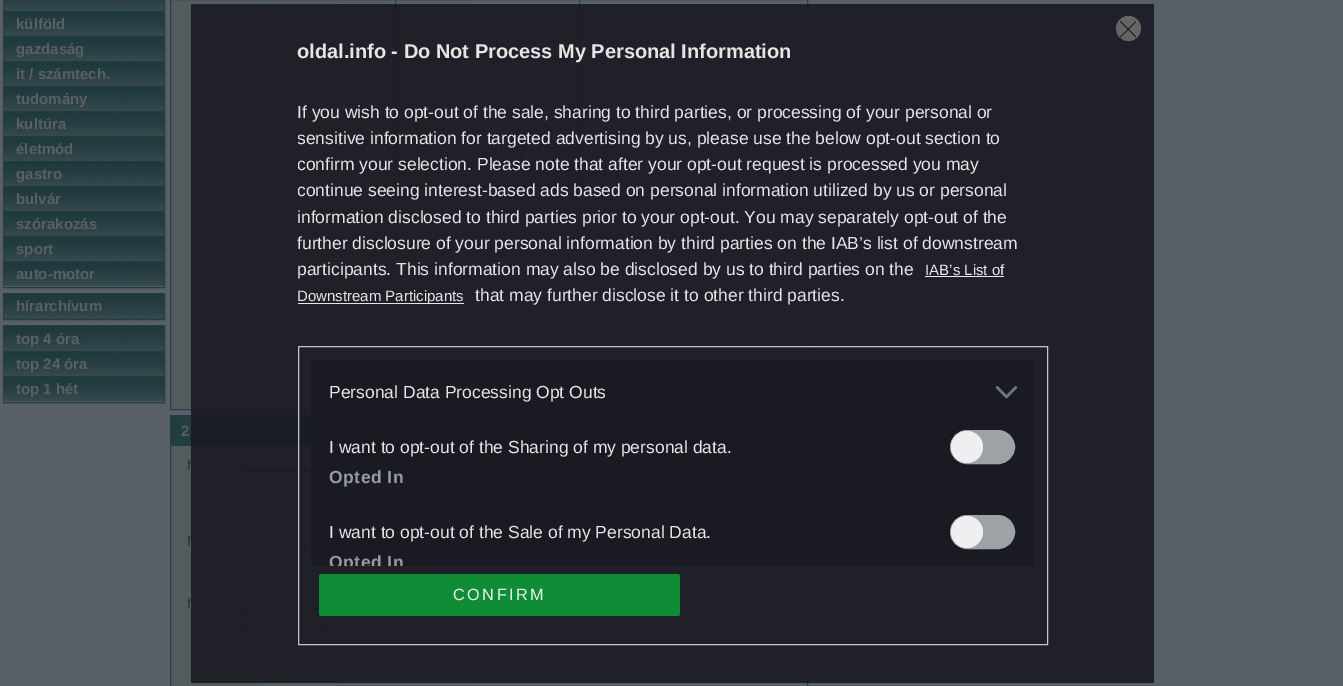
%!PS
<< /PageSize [1343 686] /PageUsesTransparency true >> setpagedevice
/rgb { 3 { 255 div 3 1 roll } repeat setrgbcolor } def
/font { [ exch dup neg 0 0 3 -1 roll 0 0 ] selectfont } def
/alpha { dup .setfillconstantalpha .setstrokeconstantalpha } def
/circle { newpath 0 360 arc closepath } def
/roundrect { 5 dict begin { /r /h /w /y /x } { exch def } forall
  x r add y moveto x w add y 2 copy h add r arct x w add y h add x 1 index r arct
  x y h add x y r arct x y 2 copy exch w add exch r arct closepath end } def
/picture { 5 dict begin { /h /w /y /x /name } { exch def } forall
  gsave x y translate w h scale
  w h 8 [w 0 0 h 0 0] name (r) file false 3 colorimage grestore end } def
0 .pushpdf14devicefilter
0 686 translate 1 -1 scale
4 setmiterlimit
89 95 103 rgb
0 0 1343 686 rectfill
35 62 65 rgb
3.5 -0.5 161 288 rectstroke
(img/1.rgb) 3 0 161 12 picture
4 11 160 25 rectfill
(img/2.rgb) 3 11 161 26 picture
4 36 160 25 rectfill
(img/2.rgb) 3 36 161 26 picture
4 61 160 25 rectfill
(img/2.rgb) 3 61 161 26 picture
4 86 160 25 rectfill
(img/2.rgb) 3 86 161 26 picture
4 111 160 25 rectfill
(img/2.rgb) 3 111 161 26 picture
4 136 160 25 rectfill
(img/2.rgb) 3 136 161 26 picture
4 161 160 25 rectfill
(img/2.rgb) 3 161 161 26 picture
4 186 160 25 rectfill
(img/2.rgb) 3 186 161 26 picture
4 211 160 25 rectfill
(img/2.rgb) 3 211 161 26 picture
4 236 160 25 rectfill
(img/2.rgb) 3 236 161 26 picture
4 261 160 25 rectfill
(img/2.rgb) 3 261 161 26 picture
3.5 293.5 161 26 rectstroke
4 294 160 25 rectfill
(img/3.rgb) 3 293 161 26 picture
3.5 325.5 161 77 rectstroke
4 326 160 25 rectfill
(img/4.rgb) 3 326 161 26 picture
4 351 160 25 rectfill
(img/2.rgb) 3 351 161 26 picture
4 376 160 25 rectfill
(img/2.rgb) 3 376 161 26 picture
(img/5.rgb) 171 0 301 409 picture
170.5 -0.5 637 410 rectstroke
[
  [579 0 1 186 35 62 65]
  [395 185 185 1 35 62 65]
  [395 0 1 186 35 62 65]
  [396 33 183 26 83 92 92]
  [395 59 185 1 35 62 65]
] { aload pop rgb rectfill } forall
501.5 138.5 22 19 rectstroke
(img/6.rgb) 171 446 301 240 picture
170.5 415.5 637 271 rectstroke
[
  [171 416 635 30 35 62 65]
  [245 471 274 1 25 31 39]
  [249 486 45 1 42 48 56]
  [245 548 474 1 25 31 39]
  [249 563 52 1 42 48 56]
  [245 609 546 1 25 31 39]
  [245 626 79 1 25 31 39]
  [249 641 52 1 42 48 56]
] { aload pop rgb rectfill } forall
0.9 alpha
[
  [191 4 963 679 25 25 34]
] { aload pop rgb rectfill } forall
1 alpha
101 101 102 rgb
1128.5 28.5 12.5 circle fill
gsave
1120 21 16 17 rectclip
9 9 10 rgb
0.7 setlinewidth
1 setlinecap
1 setlinejoin
1120.5 21.5 moveto 1136 37 lineto 1136 21.5 moveto 1120.5 37 lineto stroke
grestore
235 235 236 rgb
925 276 79 1 rectfill
229 229 230 rgb
298 303 166 1 rectfill
0.9 alpha
216 216 216 rgb
298.5 346.5 749 298 rectstroke
25 25 34 rgb
311 360 723 206 rectfill
1 alpha
(img/7.rgb) 995 386 23 13 picture
158 162 167 rgb
950.5 430.5 64 33 16.5 roundrect gsave fill grestore
stroke
238 239 240 rgb
967 447 16 circle fill
158 162 167 rgb
950.5 515.5 64 33 16.5 roundrect gsave fill grestore
stroke
238 239 240 rgb
967 532 16 circle fill
0.9 alpha
14 152 57 rgb
319 574 361 42 2.5 roundrect fill
/LiberationSans-Bold 15 font
1 alpha
89 95 103 rgb
[
  [(külföld) 16 29]
  [(gazdaság) 16 54]
  [(it / számtech.) 16 79]
  [(tudomány) 16 104]
  [(kultúra) 16 129]
  [(életmód) 16 154]
  [(gastro) 16 179]
  [(bulvár) 16 204]
  [(szórakozás) 16 229]
  [(sport) 16 254]
  [(auto-motor) 16 279]
  [(hírarchívum) 16 311]
  [(top 4 óra) 16 344]
  [(top 24 óra) 16 369]
  [(top 1 hét) 16 394]
  [(2) 181 436]
] { aload pop moveto show } forall
/LiberationSans-Regular 14 font
42 48 56 rgb
[
  [(f) 187 470]
  [(f) 187 546]
  [(f) 187 608]
] { aload pop moveto show } forall
/LiberationSans-Bold 20 font
229 229 230 rgb
297 58 moveto (oldal.info - Do Not Process My Personal Information) show
/LiberationSans-Regular 17.5 font
297 118 moveto (If you wish to opt-out of the sale, sharing to third parties, or processing of your personal or) show
gsave
298 80 750 248 rectclip
[
  [(sensitive information for targeted advertising by us, please use the below opt-out section to) 297 144]
  [(confirm your selection. Please note that after your opt-out request is processed you may) 297 170]
  [(continue seeing interest-based ads based on personal information utilized by us or personal) 297 196]
] { aload pop moveto show } forall
grestore
[
  [(information disclosed to third parties prior to your opt-out. You may separately opt-out of the) 297 223]
  [(further disclosure of your personal information by third parties on the IAB’s list of downstream) 297 249]
  [(participants. This information may also be disclosed by us to third parties on the) 297 275]
] { aload pop moveto show } forall
/LiberationSans-Regular 15 font
235 235 236 rgb
925 275 moveto (IAB’s List of) show
229 229 230 rgb
297 301 moveto (Downstream Participants) show
/LiberationSans-Regular 17.5 font
[
  [(that may further disclose it to other third parties.) 475 301]
  [(Personal Data Processing Opt Outs) 329 398]
  [(I want to opt-out of the Sharing of my personal data.) 329 453]
] { aload pop moveto show } forall
/LiberationSans-Bold 17.5 font
152 155 160 rgb
329 483 moveto 0.5 0 (Opted In) ashow
/LiberationSans-Regular 17.5 font
229 229 230 rgb
329 538 moveto (I want to opt-out of the Sale of my Personal Data.) show
gsave
311 360 723 206 rectclip
/LiberationSans-Bold 17.5 font
152 155 160 rgb
329 568 moveto 0.5 0 (Opted In) ashow
grestore
/LiberationSans-Regular 16.25 font
231 243 235 rgb
453 600 moveto 2.5 0 (CONFIRM) ashow
.poppdf14devicefilter showpage
